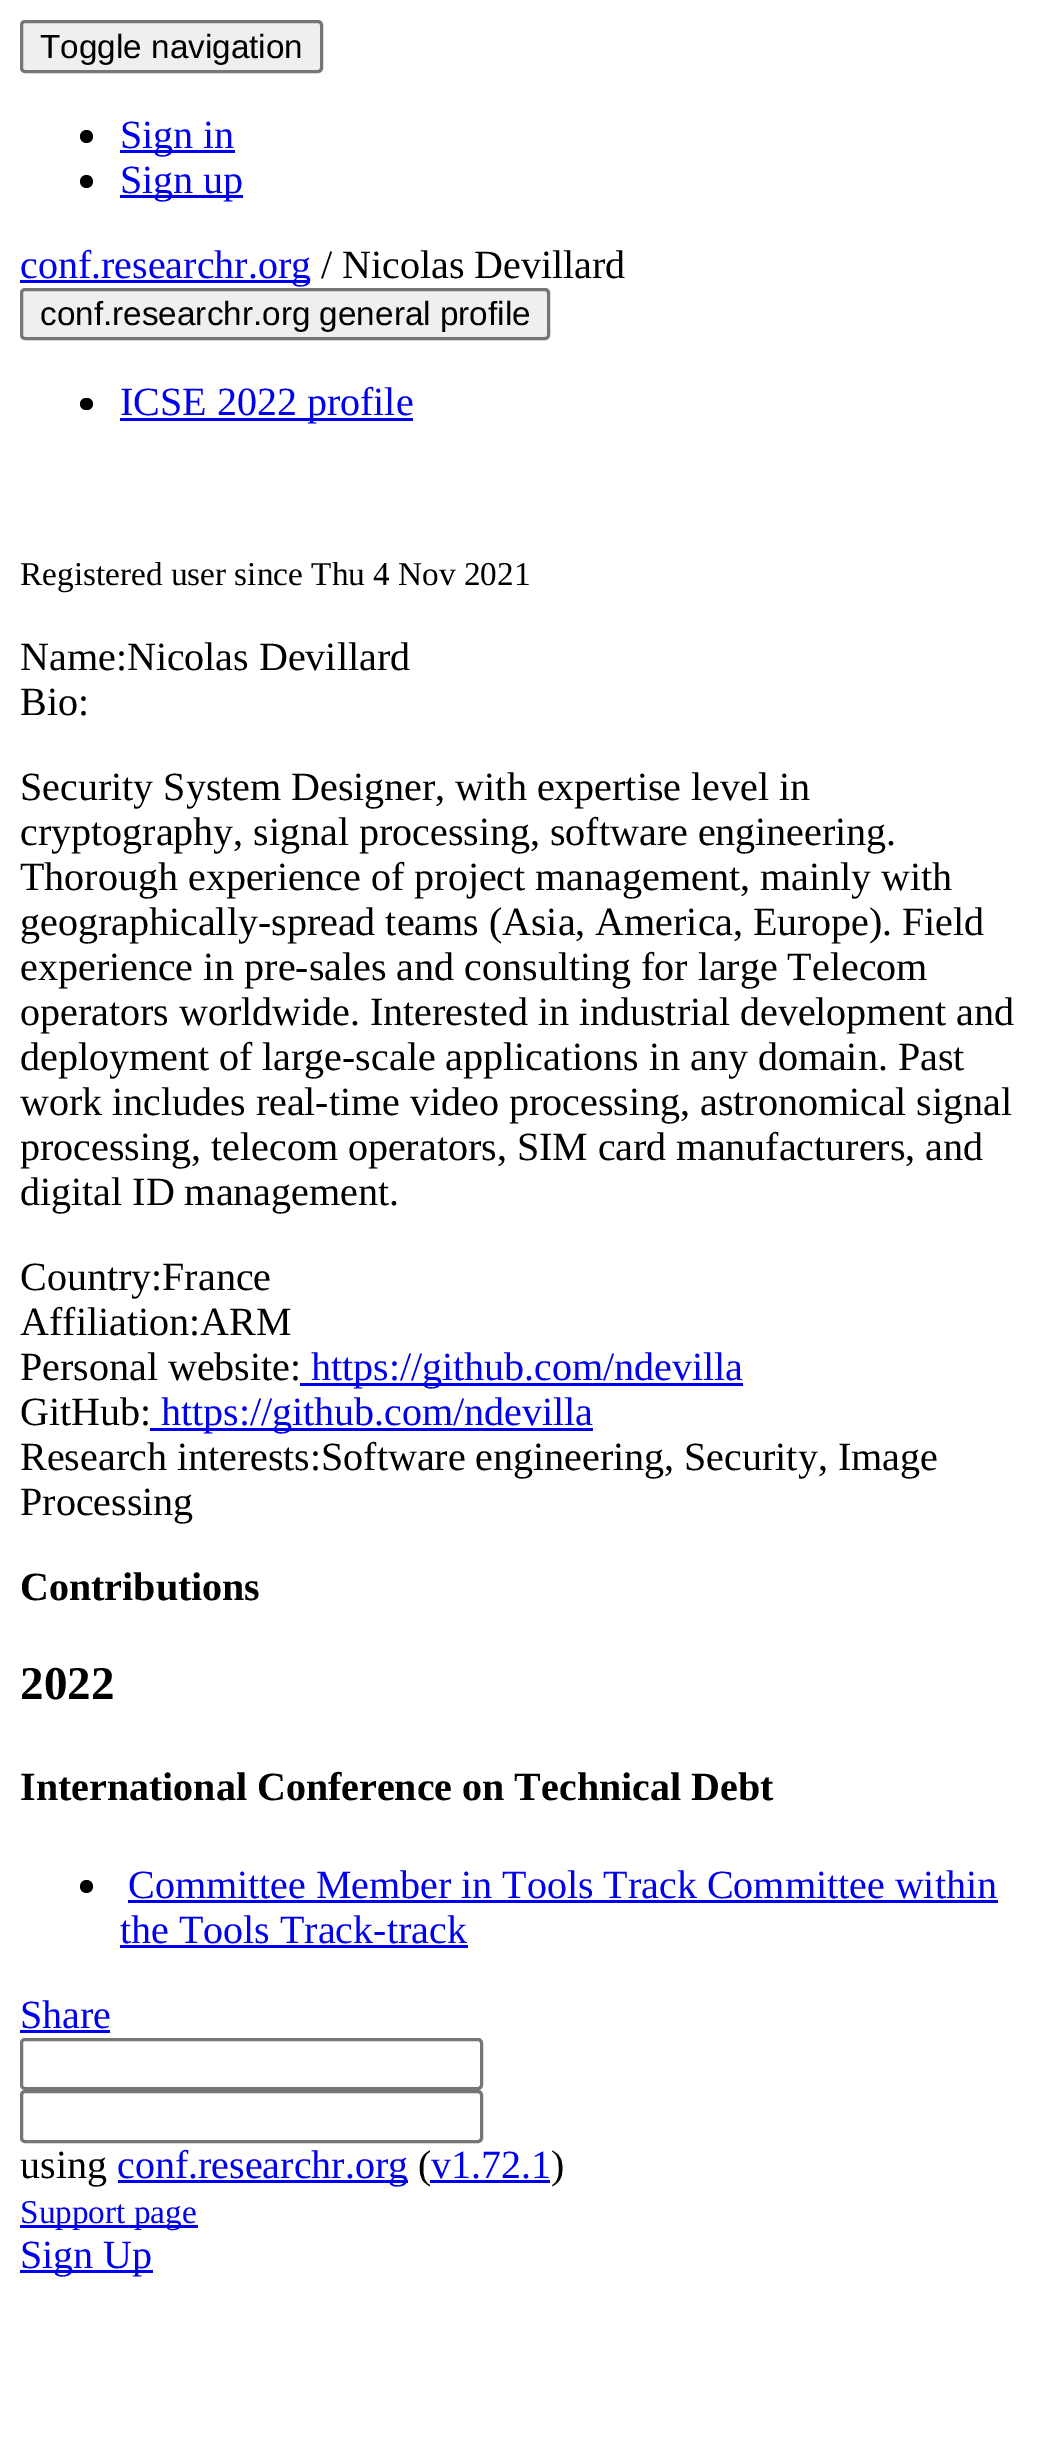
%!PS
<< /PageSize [1038 2438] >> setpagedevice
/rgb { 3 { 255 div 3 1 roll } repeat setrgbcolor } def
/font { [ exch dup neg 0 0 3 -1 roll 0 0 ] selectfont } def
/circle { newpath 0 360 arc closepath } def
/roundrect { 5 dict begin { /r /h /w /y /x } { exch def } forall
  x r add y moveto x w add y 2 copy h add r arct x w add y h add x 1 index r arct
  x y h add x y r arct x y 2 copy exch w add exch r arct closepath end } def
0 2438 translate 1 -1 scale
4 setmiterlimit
255 255 255 rgb
0 0 1038 2438 rectfill
239 239 239 rgb
21.5 21.5 300 50 3.5 roundrect gsave fill grestore
118 118 118 rgb
3 setlinewidth
stroke
0 0 0 rgb
86.5 136.5 6.5 circle fill
0 0 238 rgb
120 150 115 3 rectfill
0 0 0 rgb
86.5 181.5 6.5 circle fill
0 0 238 rgb
120 195 123 3 rectfill
20 280 290 3 rectfill
239 239 239 rgb
21.5 289.5 527 49 3.5 roundrect gsave fill grestore
118 118 118 rgb
stroke
0 0 0 rgb
80 398 13 12 6 roundrect fill
[
  [120 418 293 3 0 0 238]
  [300 1383 443 3 0 0 238]
  [150 1428 443 3 0 0 238]
] { aload pop rgb rectfill } forall
0 0 0 rgb
86.5 1886.5 6.5 circle fill
[
  [128 1900 870 3 0 0 238]
  [120 1945 348 3 0 0 238]
  [20 2030 90 3 0 0 238]
] { aload pop rgb rectfill } forall
118 118 118 rgb
21.5 2039.5 460 49 3.5 roundrect stroke
21.5 2091.5 460 50 3.5 roundrect stroke
[
  [118 2180 290 3 0 0 238]
  [430 2180 120 3 0 0 238]
  [20 2225 178 3 0 0 238]
  [20 2270 133 3 0 0 238]
] { aload pop rgb rectfill } forall
/LiberationSans-Regular 33.3 font
0 0 0 rgb
40 58 moveto (Toggle navigation) show
/LiberationSerif-Regular 40 font
0 0 238 rgb
[
  [(Sign in) 120 148]
  [(Sign up) 120 193]
  [(conf.researchr.org) 20 278]
] { aload pop moveto show } forall
0 0 0 rgb
321 278 moveto (/ Nicolas Devillard) show
/LiberationSans-Regular 33.3 font
40 325 moveto (conf.researchr.org general profile) show
/LiberationSerif-Regular 40 font
0 0 238 rgb
120 415 moveto (ICSE 2022 profile) show
/LiberationSerif-Regular 33.3 font
0 0 0 rgb
20 585 moveto (Registered user since Thu 4 Nov 2021) show
/LiberationSerif-Regular 40 font
[
  [(Name:Nicolas Devillard) 20 670]
  [(Bio:) 20 715]
  [(Security System Designer, with expertise level in) 20 800]
  [(cryptography, signal processing, software engineering.) 20 845]
  [(Thorough experience of project management, mainly with) 20 890]
  [(geographically-spread teams \(Asia, America, Europe\). Field) 20 935]
  [(experience in pre-sales and consulting for large Telecom) 20 980]
  [(operators worldwide. Interested in industrial development and) 20 1025]
  [(deployment of large-scale applications in any domain. Past) 20 1070]
  [(work includes real-time video processing, astronomical signal) 20 1115]
  [(processing, telecom operators, SIM card manufacturers, and) 20 1160]
  [(digital ID management.) 20 1205]
  [(Country:France) 20 1290]
  [(Affiliation:ARM) 20 1335]
  [(Personal website:) 20 1380]
] { aload pop moveto show } forall
0 0 238 rgb
311 1380 moveto (https://github.com/ndevilla) show
0 0 0 rgb
20 1425 moveto (GitHub:) show
0 0 238 rgb
161 1425 moveto (https://github.com/ndevilla) show
0 0 0 rgb
20 1470 moveto (Research interests:Software engineering, Security, Image) show
20 1515 moveto (Processing) show
/LiberationSerif-Bold 40 font
20 1600 moveto (Contributions) show
/LiberationSerif-Bold 47 font
20 1699 moveto (2022) show
/LiberationSerif-Bold 40 font
20 1800 moveto (International Conference on Technical Debt) show
/LiberationSerif-Regular 40 font
0 0 238 rgb
[
  [(Committee Member in Tools Track Committee within) 128 1898]
  [(the Tools Track-track) 120 1943]
  [(Share) 20 2028]
] { aload pop moveto show } forall
0 0 0 rgb
20 2178 moveto (using) show
0 0 238 rgb
117 2178 moveto (conf.researchr.org) show
0 0 0 rgb
418 2178 moveto (\() show
0 0 238 rgb
431 2178 moveto (v1.72.1) show
0 0 0 rgb
551 2178 moveto (\)) show
/LiberationSerif-Regular 33.3 font
0 0 238 rgb
20 2223 moveto (Support page) show
/LiberationSerif-Regular 40 font
20 2268 moveto (Sign Up) show
showpage
